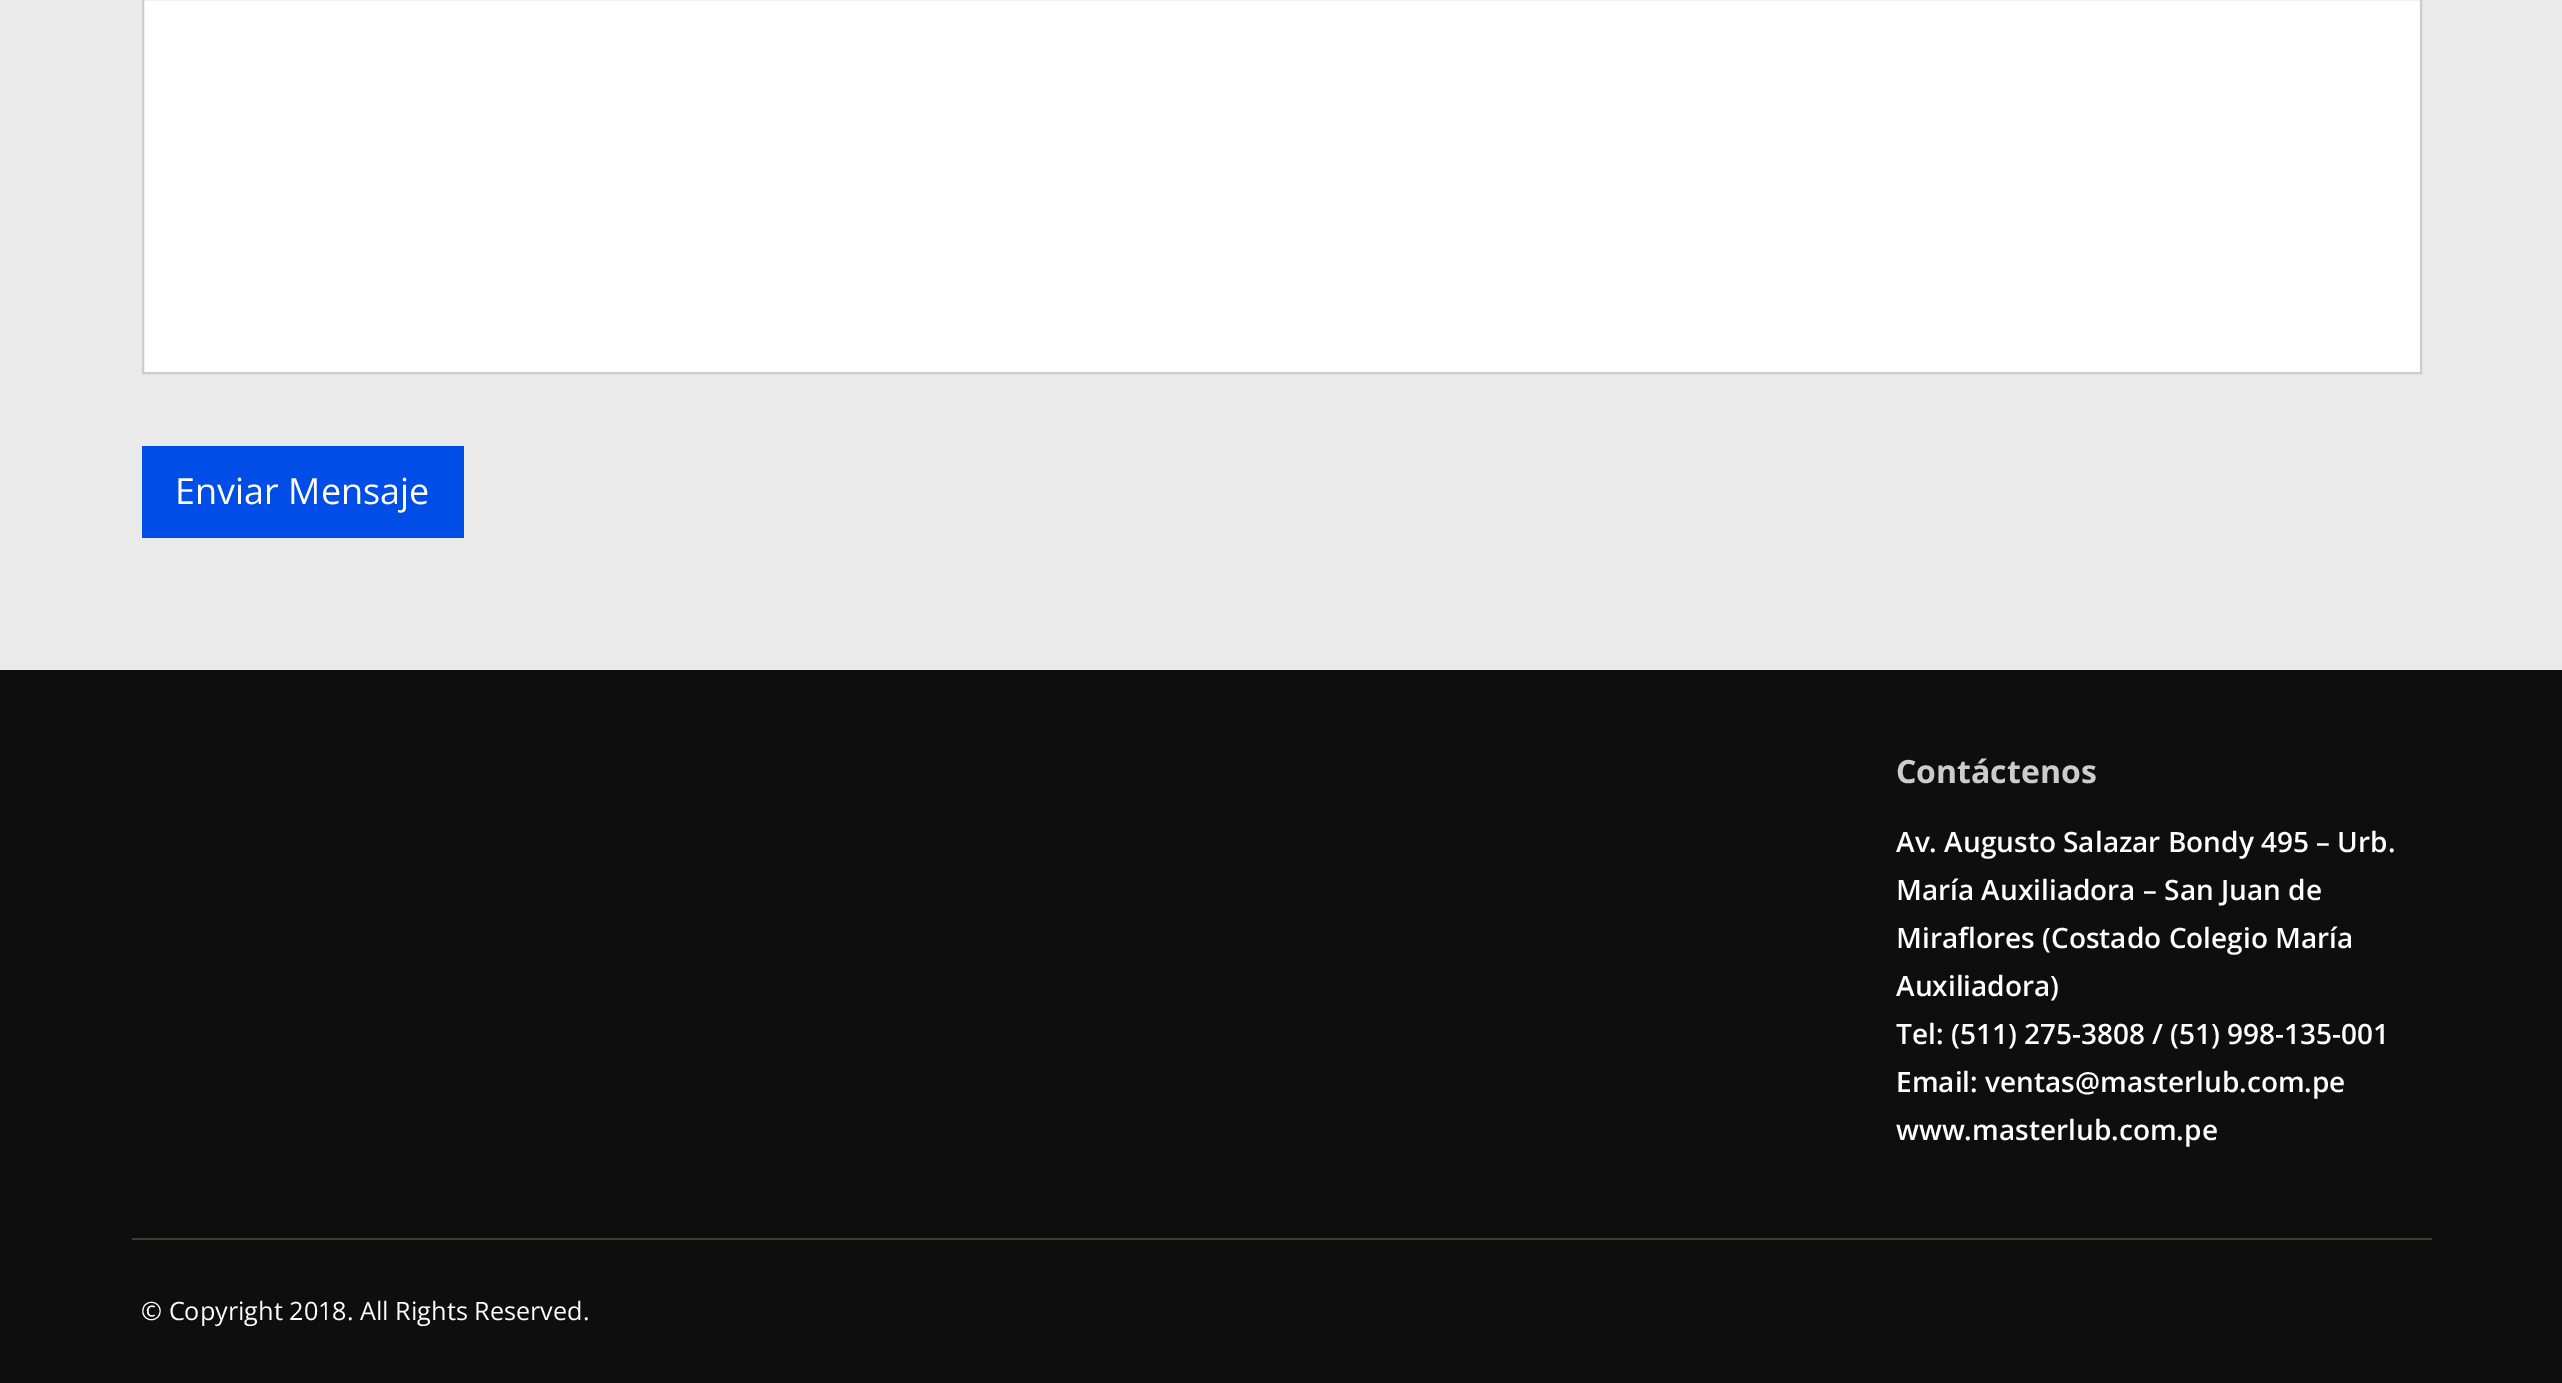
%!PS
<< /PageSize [2562 1383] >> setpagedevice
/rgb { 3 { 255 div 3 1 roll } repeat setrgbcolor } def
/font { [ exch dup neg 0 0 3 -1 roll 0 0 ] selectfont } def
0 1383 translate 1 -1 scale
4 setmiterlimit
234 234 234 rgb
0 0 2562 1383 rectfill
255 255 255 rgb
143 -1 moveto 2421 -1 lineto 2421 373 lineto 143 373 lineto closepath gsave fill grestore
204 204 204 rgb
2 setlinewidth
stroke
[
  [142 446 322 92 0 77 232]
  [0 670 2562 713 14 14 14]
  [132 1238 2300 2 61 61 56]
] { aload pop rgb rectfill } forall
/OpenSans-Regular 36 font
255 255 255 rgb
175 504 moveto (Enviar Mensaje) show
/OpenSans-Bold 32 font
204 204 204 rgb
1896 783 moveto (Contáctenos) show
/OpenSans-SemiBold 28 font
255 255 255 rgb
[
  [(Av. Augusto Salazar Bondy 495 – Urb.) 1896 852]
  [(María Auxiliadora – San Juan de) 1896 900]
  [(Miraflores \(Costado Colegio María) 1896 948]
  [(Auxiliadora\)) 1896 996]
  [(Tel: \(511\) 275-3808 / \(51\) 998-135-001) 1896 1044]
  [(Email: ventas@masterlub.com.pe) 1896 1092]
  [(www.masterlub.com.pe) 1896 1140]
] { aload pop moveto show } forall
/OpenSans-Regular 25.25 font
141 1320 moveto (© Copyright 2018. All Rights Reserved.) show
showpage
